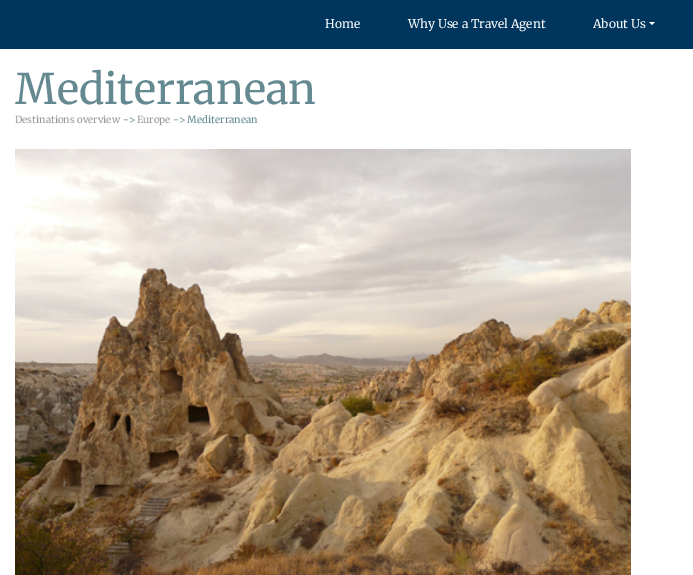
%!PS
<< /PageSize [693 575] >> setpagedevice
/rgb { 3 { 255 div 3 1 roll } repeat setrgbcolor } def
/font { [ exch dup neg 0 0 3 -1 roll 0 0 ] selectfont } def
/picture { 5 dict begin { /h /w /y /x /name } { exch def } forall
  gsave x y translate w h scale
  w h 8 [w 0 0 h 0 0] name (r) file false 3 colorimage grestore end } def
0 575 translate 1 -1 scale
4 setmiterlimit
0 54 93 rgb
0 0 693 575 rectfill
255 255 255 rgb
649 22 moveto 655 22 lineto 652 25 lineto closepath fill
0 49 693 526 rectfill
(img/1.rgb) 15 149 616 426 picture
/Merriweather-Light 12 font
[
  [(Home) 325 28]
  [(Why Use a Travel Agent) 408 28]
  [(About Us) 593 28]
] { aload pop moveto show } forall
/Merriweather-Light 42 font
100 137 145 rgb
15 104 moveto (Mediterranean) show
/Merriweather-Light 9.75 font
151 151 150 rgb
15 123 moveto (Destinations overview) show
100 137 145 rgb
123 123 moveto (->) show
151 151 150 rgb
137 123 moveto (Europe) show
100 137 145 rgb
173 123 moveto (-> Mediterranean) show
showpage
